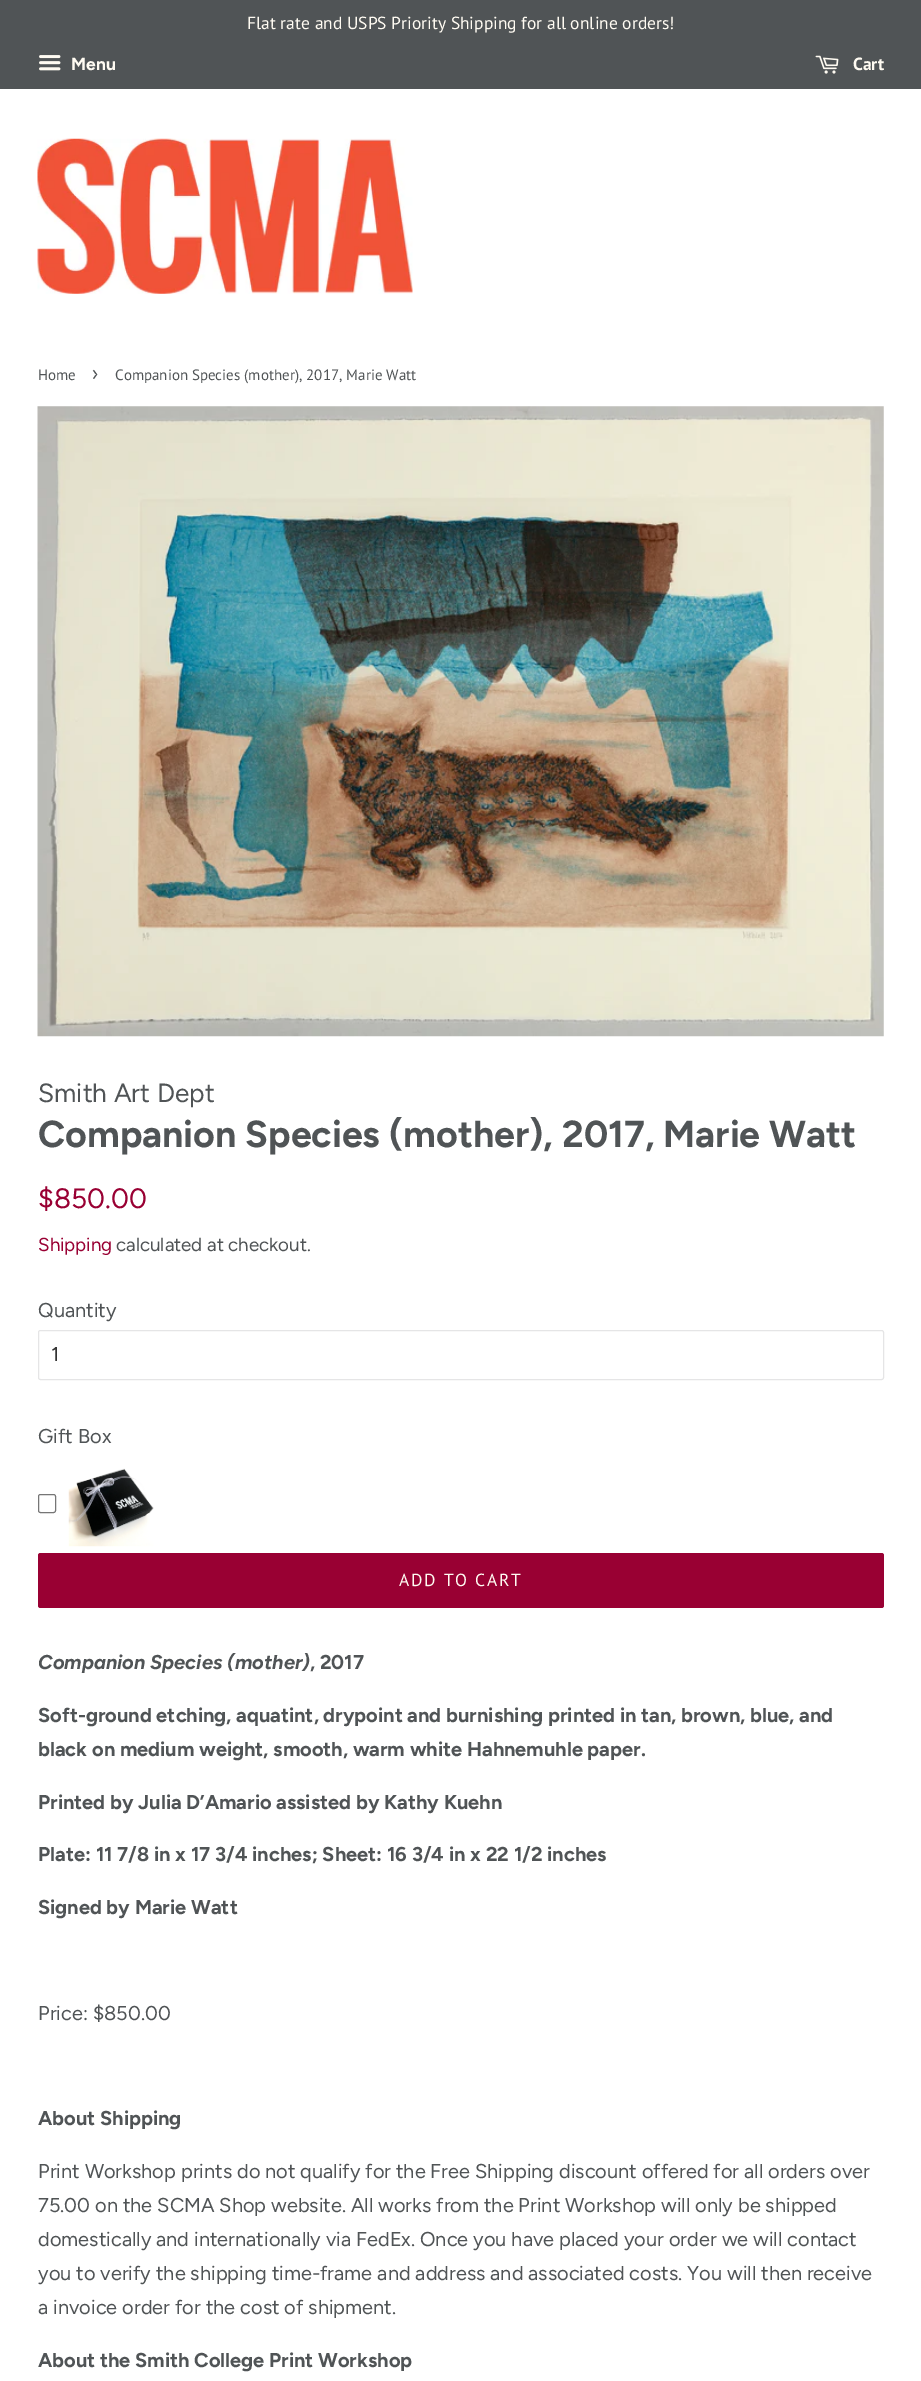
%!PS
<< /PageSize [921 2381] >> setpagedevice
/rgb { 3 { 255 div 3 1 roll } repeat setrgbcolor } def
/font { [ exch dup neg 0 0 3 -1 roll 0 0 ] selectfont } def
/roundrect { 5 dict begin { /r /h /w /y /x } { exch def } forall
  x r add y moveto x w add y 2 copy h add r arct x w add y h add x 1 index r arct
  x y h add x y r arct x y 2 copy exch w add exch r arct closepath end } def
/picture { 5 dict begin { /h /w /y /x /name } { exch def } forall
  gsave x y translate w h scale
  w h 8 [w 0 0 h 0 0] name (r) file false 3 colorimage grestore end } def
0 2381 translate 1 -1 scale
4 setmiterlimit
255 255 255 rgb
0 0 921 2381 rectfill
80 84 86 rgb
0 0 921 89 rectfill
(img/1.rgb) 39 55 22 16 picture
(img/2.rgb) 815 55 24 19 picture
(img/3.rgb) 37 138 376 156 picture
(img/4.rgb) 37 406 847 631 picture
229 229 230 rgb
38.5 1330.5 845 49 2 roundrect stroke
118 118 118 rgb
38.5 1494.5 17 18 2 roundrect stroke
(img/5.rgb) 68 1468 86 79 picture
153 0 51 rgb
38 1553 846 55 2.5 roundrect fill
/PTSans-Regular 17.5 font
255 251 242 rgb
247 29 moveto (Flat rate and USPS Priority Shipping for all online orders!) show
/Figtree-Bold 17.5 font
71 70 moveto (Menu) show
/PTSans-Bold 17.5 font
853 70 moveto (Cart) show
/PTSans-Regular 15 font
80 84 86 rgb
38 380 moveto (Home) show
/PTSans-Regular 21 font
92 380 moveto (›) show
/PTSans-Regular 15 font
115 380 moveto (Companion Species \(mother\), 2017, Marie Watt) show
/Figtree-Regular 26.25 font
38 1102 moveto (Smith Art Dept) show
/Figtree-Bold 37.5 font
38 1147 moveto (Companion Species \(mother\), 2017, Marie Watt) show
/Figtree-Regular 28 font
153 0 51 rgb
38 1208 moveto ($850.00) show
/Figtree-Regular 18.75 font
38 1251 moveto (Shipping) show
80 84 86 rgb
116 1251 moveto (calculated at checkout.) show
/Figtree-Regular 20 font
38 1317 moveto (Quantity) show
51 51 51 rgb
51 1361 moveto (1) show
80 84 86 rgb
38 1443 moveto (Gift Box) show
/PTSans-Regular 17.5 font
255 251 242 rgb
399 1586 moveto 1.75 0 (ADD TO CART) ashow
/Figtree-BoldItalic 20 font
80 84 86 rgb
38 1669 moveto (Companion Species \(mother\)) show
/Figtree-Bold 20 font
[
  [(, 2017) 310 1669]
  [(Soft-ground etching, aquatint, drypoint and burnishing printed in tan, brown, blue, and) 38 1722]
  [(black on medium weight, smooth, warm white Hahnemuhle paper.) 38 1756]
  [(Printed by Julia D’Amario assisted by Kathy Kuehn) 38 1809]
  [(Plate: 11 7/8 in x 17 3/4 inches; Sheet: 16 3/4 in x 22 1/2 inches) 38 1861]
  [(Signed by Marie Watt) 38 1914]
] { aload pop moveto show } forall
/Figtree-Regular 20 font
38 2020 moveto (Price: $850.00) show
/Figtree-Bold 20 font
38 2125 moveto (About Shipping) show
/Figtree-Regular 20 font
[
  [(Print Workshop prints do not qualify for the Free Shipping discount offered for all orders over) 38 2178]
  [(75.00 on the SCMA Shop website. All works from the Print Workshop will only be shipped) 38 2212]
  [(domestically and internationally via FedEx. Once you have placed your order we will contact) 38 2246]
  [(you to verify the shipping time-frame and address and associated costs. You will then receive) 38 2280]
  [(a invoice order for the cost of shipment.) 38 2314]
] { aload pop moveto show } forall
/Figtree-Bold 20 font
38 2367 moveto (About the Smith College Print Workshop) show
showpage
